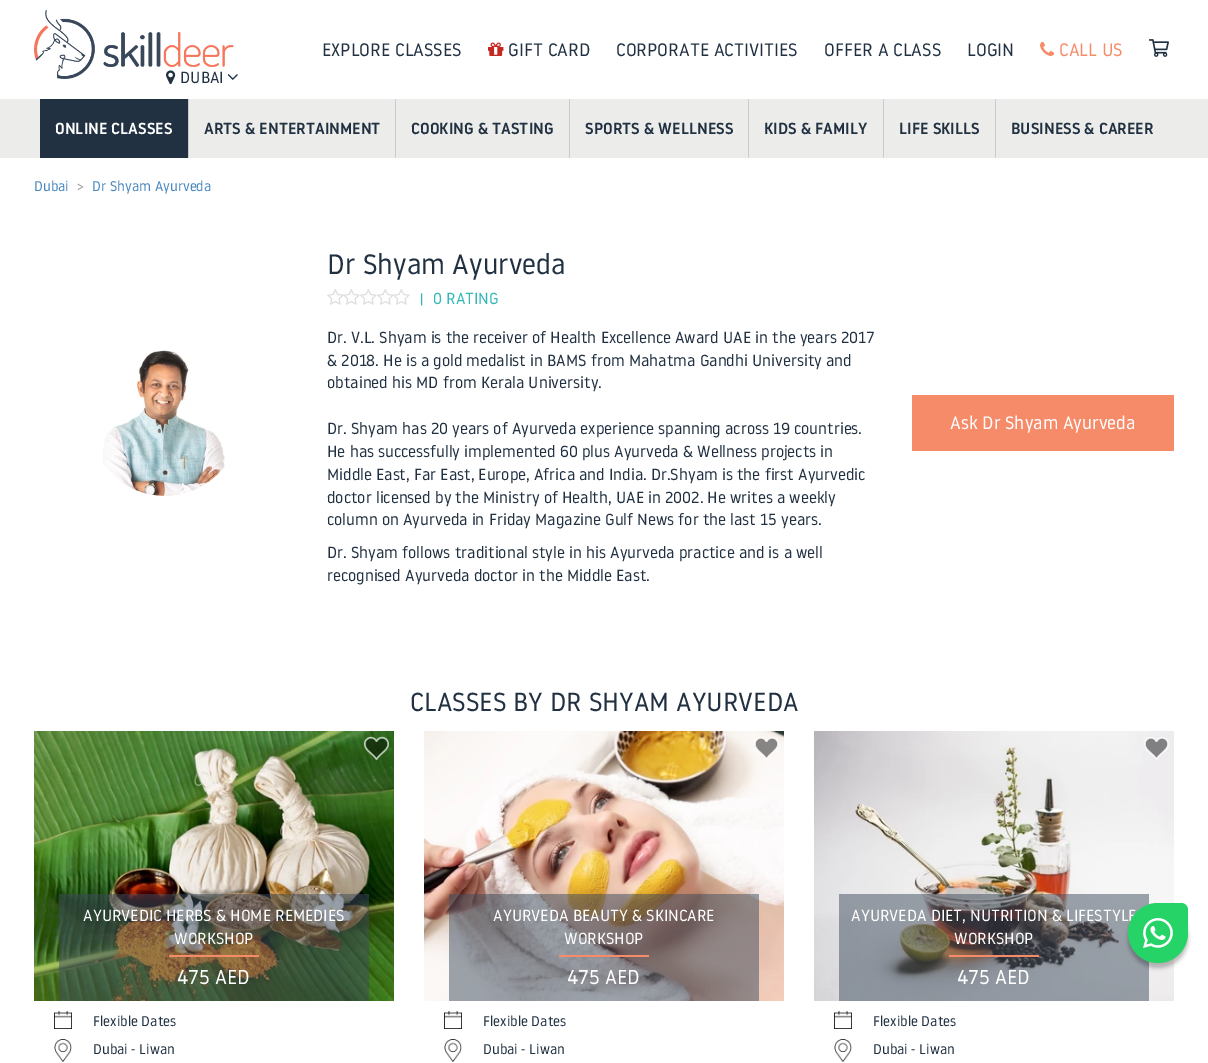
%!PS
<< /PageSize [1208 1063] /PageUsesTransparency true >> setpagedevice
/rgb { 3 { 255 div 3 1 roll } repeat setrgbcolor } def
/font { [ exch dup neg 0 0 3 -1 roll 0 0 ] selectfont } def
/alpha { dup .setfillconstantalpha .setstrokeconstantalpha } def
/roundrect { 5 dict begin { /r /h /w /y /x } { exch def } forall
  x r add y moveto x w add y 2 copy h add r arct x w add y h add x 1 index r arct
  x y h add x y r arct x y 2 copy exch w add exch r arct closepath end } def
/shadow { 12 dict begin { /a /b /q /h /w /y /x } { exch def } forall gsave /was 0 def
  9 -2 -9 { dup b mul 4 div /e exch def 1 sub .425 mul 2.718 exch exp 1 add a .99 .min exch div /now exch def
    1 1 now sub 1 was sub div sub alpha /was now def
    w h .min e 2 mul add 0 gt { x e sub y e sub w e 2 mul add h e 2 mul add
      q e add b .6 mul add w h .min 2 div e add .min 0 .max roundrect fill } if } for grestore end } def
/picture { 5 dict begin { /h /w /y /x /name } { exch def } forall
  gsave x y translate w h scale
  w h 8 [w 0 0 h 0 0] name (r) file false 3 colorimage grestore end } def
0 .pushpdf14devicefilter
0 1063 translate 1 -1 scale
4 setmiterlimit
255 255 255 rgb
0 0 1208 1063 rectfill
(img/1.rgb) 488 42 16 14 picture
(img/2.rgb) 1040 41 15 15 picture
(img/3.rgb) 1149 39 20 18 picture
(img/4.rgb) 34 10 200 69 picture
(img/5.rgb) 166 70 10 15 picture
(img/6.rgb) 227 74 11 6 picture
[
  [0 99 1208 59 236 236 234]
  [188 99 1 59 201 204 206]
  [40 99 148 59 33 49 65]
  [395 99 1 59 201 204 206]
  [569 99 1 59 201 204 206]
  [748 99 1 59 201 204 206]
  [883 99 1 59 201 204 206]
  [995 99 1 59 201 204 206]
] { aload pop rgb rectfill } forall
(img/7.rgb) 103 350 122 146 picture
(img/8.rgb) 327 289 17 16 picture
(img/9.rgb) 343 289 17 16 picture
(img/8.rgb) 360 289 17 16 picture
(img/8.rgb) 377 289 17 16 picture
(img/9.rgb) 393 289 17 16 picture
246 139 106 rgb
912 395 262 56 rectfill
(img/11.rgb) 34 731 360 270 picture
(img/10.rgb) 364 736 25 25 picture
0.5 alpha
61 76 93 rgb
59 894 310 107 rectfill
1 alpha
245 139 104 rgb
169 955 90 2 rectfill
(img/12.rgb) 54 1011 18 18 picture
(img/13.rgb) 54 1039 18 23 picture
(img/15.rgb) 424 731 360 270 picture
(img/14.rgb) 754 737 25 23 picture
0.5 alpha
61 76 93 rgb
449 894 310 107 rectfill
1 alpha
245 139 104 rgb
559 955 90 2 rectfill
(img/16.rgb) 444 1011 18 18 picture
(img/17.rgb) 444 1039 18 23 picture
(img/19.rgb) 814 731 360 270 picture
(img/18.rgb) 1144 737 25 23 picture
0.5 alpha
61 76 93 rgb
839 894 310 107 rectfill
1 alpha
245 139 104 rgb
949 955 90 2 rectfill
(img/16.rgb) 834 1011 18 18 picture
(img/17.rgb) 834 1039 18 23 picture
0 0 0 rgb
1128 908 60 60 30 2 0.26 shadow
/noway-Regular 18 font
33 49 66 rgb
[
  [(EXPLORE CLASSES) 322 56]
  [(GIFT CARD) 508 56]
  [(CORPORATE ACTIVITIES) 616 56]
  [(OFFER A CLASS) 824 56]
  [(LOGIN) 967 56]
] { aload pop moveto show } forall
246 139 106 rgb
1059 56 moveto (CALL US) show
/noway-Regular 16 font
33 49 66 rgb
180 83 moveto (DUBAI) show
/noway-Medium 16 font
255 255 255 rgb
55 134 moveto (ONLINE CLASSES) show
33 49 66 rgb
[
  [(ARTS & ENTERTAINMENT) 204 134]
  [(COOKING & TASTING) 411 134]
  [(SPORTS & WELLNESS) 585 134]
  [(KIDS & FAMILY) 764 134]
  [(LIFE SKILLS) 899 134]
  [(BUSINESS & CAREER) 1011 134]
] { aload pop moveto show } forall
/noway-Regular 14 font
71 135 190 rgb
34 191 moveto (Dubai) show
153 153 153 rgb
77 191 moveto (>) show
71 135 190 rgb
92 191 moveto (Dr Shyam Ayurveda) show
/noway-Regular 28 font
33 49 66 rgb
327 274 moveto (Dr Shyam Ayurveda) show
/noway-Regular 14 font
53 184 184 rgb
420 304 moveto (|) show
/noway-Regular 16 font
433 304 moveto (0 RATING) show
33 49 66 rgb
[
  [(Dr. V.L. Shyam is the receiver of Health Excellence Award UAE in the years 2017) 327 343]
  [(& 2018. He is a gold medalist in BAMS from Mahatma Gandhi University and) 327 366]
  [(obtained his MD from Kerala University.) 327 388]
  [(Dr. Shyam has 20 years of Ayurveda experience spanning across 19 countries.) 327 434]
  [(He has successfully implemented 60 plus Ayurveda & Wellness projects in) 327 457]
  [(Middle East, Far East, Europe, Africa and India. Dr.Shyam is the first Ayurvedic) 327 480]
  [(doctor licensed by the Ministry of Health, UAE in 2002. He writes a weekly) 327 503]
  [(column on Ayurveda in Friday Magazine Gulf News for the last 15 years.) 327 525]
  [(Dr. Shyam follows traditional style in his Ayurveda practice and is a well) 327 558]
  [(recognised Ayurveda doctor in the Middle East.) 327 581]
] { aload pop moveto show } forall
/noway-Regular 18 font
255 255 255 rgb
950 429 moveto (Ask Dr Shyam Ayurveda) show
/noway-Regular 26 font
33 49 66 rgb
410 711 moveto (CLASSES BY DR SHYAM AYURVEDA) show
/noway-Regular 16 font
255 255 255 rgb
83 921 moveto (AYURVEDIC HERBS & HOME REMEDIES) show
174 944 moveto (WORKSHOP) show
/noway-Regular 20 font
177 984 moveto (475 AED) show
/noway-Regular 14 font
33 49 66 rgb
93 1026 moveto (Flexible Dates) show
93 1054 moveto (Dubai - Liwan) show
/noway-Regular 16 font
255 255 255 rgb
493 921 moveto (AYURVEDA BEAUTY & SKINCARE) show
564 944 moveto (WORKSHOP) show
/noway-Regular 20 font
567 984 moveto (475 AED) show
/noway-Regular 14 font
33 49 66 rgb
483 1026 moveto (Flexible Dates) show
483 1054 moveto (Dubai - Liwan) show
/noway-Regular 16 font
255 255 255 rgb
851 921 moveto (AYURVEDA DIET, NUTRITION & LIFESTYLE) show
954 944 moveto (WORKSHOP) show
/noway-Regular 20 font
957 984 moveto (475 AED) show
/noway-Regular 14 font
33 49 66 rgb
873 1026 moveto (Flexible Dates) show
873 1054 moveto (Dubai - Liwan) show
37 211 102 rgb
1158 903 moveto 1181 903 lineto 1185 903 1188 906 1188 910 curveto 1188 933 lineto 1188 949.5 1174.5 963 1158 963 curveto 1141.5 963 1128 949.5 1128 933 curveto 1128 916.5 1141.5 903 1158 903 curveto closepath fill
(img/20.rgb) 1143 918 30 30 picture
.poppdf14devicefilter showpage
